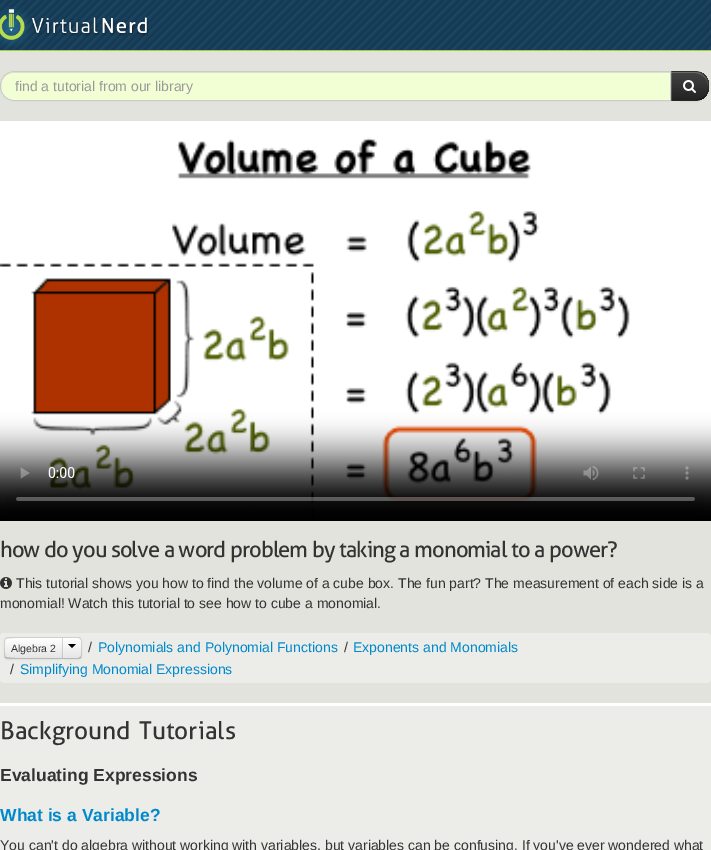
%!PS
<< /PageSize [711 850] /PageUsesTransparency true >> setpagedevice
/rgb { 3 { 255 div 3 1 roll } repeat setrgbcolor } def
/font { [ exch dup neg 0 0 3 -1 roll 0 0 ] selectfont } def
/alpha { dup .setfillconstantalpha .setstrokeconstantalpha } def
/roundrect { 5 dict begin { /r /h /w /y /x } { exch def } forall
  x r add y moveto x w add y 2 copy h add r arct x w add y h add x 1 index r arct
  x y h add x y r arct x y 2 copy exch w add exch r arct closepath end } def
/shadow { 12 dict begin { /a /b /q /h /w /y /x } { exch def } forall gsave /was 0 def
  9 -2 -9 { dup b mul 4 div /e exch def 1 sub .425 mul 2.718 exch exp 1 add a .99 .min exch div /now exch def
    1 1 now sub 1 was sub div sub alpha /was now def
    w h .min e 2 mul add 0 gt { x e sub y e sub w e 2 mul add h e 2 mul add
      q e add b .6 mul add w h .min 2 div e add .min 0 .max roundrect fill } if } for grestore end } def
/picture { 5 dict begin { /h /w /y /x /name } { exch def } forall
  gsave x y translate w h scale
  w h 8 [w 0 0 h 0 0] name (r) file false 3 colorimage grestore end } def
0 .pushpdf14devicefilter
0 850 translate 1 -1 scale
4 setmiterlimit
236 237 232 rgb
0 0 711 850 rectfill
(img/1.rgb) 0 0 711 50 picture
160 204 58 rgb
0 50 711 1 rectfill
(img/2.rgb) 0 7 149 40 picture
226 227 220 rgb
0 51 711 652 rectfill
0 0 0 rgb
670 72 39 30 14 1 0.05 shadow
54 54 54 rgb
670 71 moveto 695 71 lineto 702.5 71 709 77.5 709 85 curveto 709 87 lineto 709 94.5 702.5 101 695 101 curveto 670 101 lineto closepath fill
gsave
670 71 moveto 695 71 lineto 702.5 71 709 77.5 709 85 curveto 709 87 lineto 709 94.5 702.5 101 695 101 curveto 670 101 lineto closepath clip newpath
gsave 671 72 moveto 709 72 lineto 709 100 lineto 671 100 lineto closepath clip newpath
<< /ShadingType 2 /ColorSpace /DeviceRGB /Coords [690 72 690 100] /Extend [true true] /Function << /FunctionType 2 /Domain [0 1] /C0 [0.267 0.267 0.267] /C1 [0.133 0.133 0.133] /N 1 >> >> shfill grestore
grestore
0.2 alpha
255 255 255 rgb
671 73 moveto 695 73 lineto 702 73 708 79 708 86 curveto 708 85 lineto 708 78 702 72 695 72 curveto 671 72 lineto closepath fill
0.1 alpha
0 0 0 rgb
670 71 moveto 671 72 lineto 695 72 lineto 698.5 72 702 73.5 704 76 curveto 705 75 lineto 702 72.5 699 71 695 71 curveto closepath fill
709 87 moveto 709 82.5 708 78.5 705 75 curveto 704 76 lineto 709.5 81 709.5 91 704 96 curveto 705 97 lineto 707.5 94 709 91 709 87 curveto closepath fill
0.25 alpha
695 101 moveto 699 101 702 99.5 705 97 curveto 704 96 lineto 702 98.5 698.5 100 695 100 curveto 671 100 lineto 670 101 lineto closepath fill
1 alpha
242 255 212 rgb
14 71 moveto 671 71 lineto 671 101 lineto 14 101 lineto 6.5 101 0 94.5 0 87 curveto 0 85 lineto 0 77.5 6.5 71 14 71 curveto closepath fill
224 236 196 rgb
14 73 moveto 670 73 lineto 670 72 lineto 14 72 lineto 7 72 1 78 1 85 curveto 1 87 lineto 1 89 1 91 2 92 curveto -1 84 3 73 14 73 curveto closepath fill
204 204 204 rgb
14 71.5 moveto 670.5 71.5 lineto 670.5 100.5 lineto 14 100.5 lineto 6.5 100.5 0.5 94.5 0.5 87 curveto 0.5 85 lineto 0.5 77.5 6.5 71.5 14 71.5 curveto closepath stroke
(img/3.rgb) 683 80 13 13 picture
(img/4.rgb) 0 121 711 400 picture
(img/5.rgb) 0 577 12 12 picture
236 237 232 rgb
0 633 711 50 4 roundrect fill
0 0 0 rgb
4 638 59 22 4 1 0.05 shadow
245 245 245 rgb
8 637 moveto 63 637 lineto 63 659 lineto 8 659 lineto 6 659 4 657 4 655 curveto 4 641 lineto 4 639 6 637 8 637 curveto closepath fill
gsave
8 637 moveto 63 637 lineto 63 659 lineto 8 659 lineto 6 659 4 657 4 655 curveto 4 641 lineto 4 639 6 637 8 637 curveto closepath clip newpath
gsave 4 638 moveto 62 638 lineto 62 658 lineto 4 658 lineto closepath clip newpath
<< /ShadingType 2 /ColorSpace /DeviceRGB /Coords [34 638 34 658] /Extend [true true] /Function << /FunctionType 2 /Domain [0 1] /C0 [1 1 1] /C1 [0.902 0.902 0.902] /N 1 >> >> shfill grestore
grestore
0.15 alpha
0 0 0 rgb
8 637 moveto 5 638 lineto 6 639 lineto 8 637 56 638 62 638 curveto 63 637 lineto closepath fill
0.25 alpha
63 659 moveto 62 658 lineto 56 658 8 659 6 657 curveto 5 658 lineto 8 659 lineto closepath fill
0.15 alpha
4 641 moveto 4 655 lineto 4 656 4.5 657 5 658 curveto 6 657 lineto 4.5 656 5 649.5 5 648 curveto 5 646.5 4.5 640 6 639 curveto 5 638 lineto 4.5 639 4 640 4 641 curveto closepath fill
1 alpha
62 638 20 22 4 1 0.05 shadow
245 245 245 rgb
62 637 moveto 78 637 lineto 80 637 82 639 82 641 curveto 82 655 lineto 82 657 80 659 78 659 curveto 62 659 lineto closepath fill
gsave
62 637 moveto 78 637 lineto 80 637 82 639 82 641 curveto 82 655 lineto 82 657 80 659 78 659 curveto 62 659 lineto closepath clip newpath
gsave 62 638 moveto 82 638 lineto 82 658 lineto 62 658 lineto closepath clip newpath
<< /ShadingType 2 /ColorSpace /DeviceRGB /Coords [72 638 72 658] /Extend [true true] /Function << /FunctionType 2 /Domain [0 1] /C0 [1 1 1] /C1 [0.902 0.902 0.902] /N 1 >> >> shfill grestore
grestore
0.12 alpha
255 255 255 rgb
63 638 moveto 63 658 lineto 64 658 lineto 64 638 lineto closepath 76 638 moveto 79.5 638.5 lineto 78.5 638 77 638 76 638 curveto closepath 79.5 657.5 moveto 76 658 lineto 77 658 78.5 658 79.5 657.5 curveto closepath eofill
0.15 alpha
0 0 0 rgb
62 637 moveto 63 638 lineto 78 638 lineto 79 638 79.5 638.5 80 639 curveto 81 638 lineto 80 637.5 79 637 78 637 curveto closepath fill
82 655 moveto 82 641 lineto 82 640 81.5 639 81 638 curveto 80 639 lineto 80.5 639.5 81 640 81 641 curveto 81 655 lineto 81 656 80.5 656.5 80 657 curveto 81 658 lineto 81.5 657 82 656 82 655 curveto closepath fill
0.25 alpha
78 659 moveto 79 659 80 658.5 81 658 curveto 80 657 lineto 79.5 657.5 79 658 78 658 curveto 63 658 lineto 62 659 lineto closepath fill
0.15 alpha
63 638 moveto 62 637 lineto 62 659 lineto 63 658 lineto closepath fill
1 alpha
68 644 moveto 76 644 lineto 72 648 lineto closepath fill
255 255 255 rgb
0 703 711 3 rectfill
/LiberationSans-Regular 14 font
153 153 153 rgb
15 91 moveto (find a tutorial from our library) show
/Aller-Regular 22 font
51 51 51 rgb
0 557 moveto 0.4 0 32 -1 0 (how do you solve a word problem by taking a monomial to a power?) awidthshow
/LiberationSans-Regular 14 font
16 588 moveto (This tutorial shows you how to find the volume of a cube box. The fun part? The measurement of each side is a) show
0 608 moveto (monomial! Watch this tutorial to see how to cube a monomial.) show
/LiberationSans-Regular 10.5 font
11 652 moveto (Algebra 2) show
/LiberationSans-Regular 14 font
88 652 moveto (/) show
0 136 204 rgb
98 652 moveto (Polynomials and Polynomial Functions) show
51 51 51 rgb
344 652 moveto (/) show
0 136 204 rgb
353 652 moveto (Exponents and Monomials) show
51 51 51 rgb
10 674 moveto (/) show
0 136 204 rgb
20 674 moveto (Simplifying Monomial Expressions) show
/Aller-Regular 24.5 font
51 51 51 rgb
0 739 moveto 2 0 32 (Background Tutorials) widthshow
/LiberationSans-Bold 17.5 font
0 781 moveto (Evaluating Expressions) show
0 136 204 rgb
0 821 moveto (What is a Variable?) show
/LiberationSans-Regular 14 font
51 51 51 rgb
0 850 moveto (You can't do algebra without working with variables, but variables can be confusing. If you've ever wondered what) show
.poppdf14devicefilter showpage
